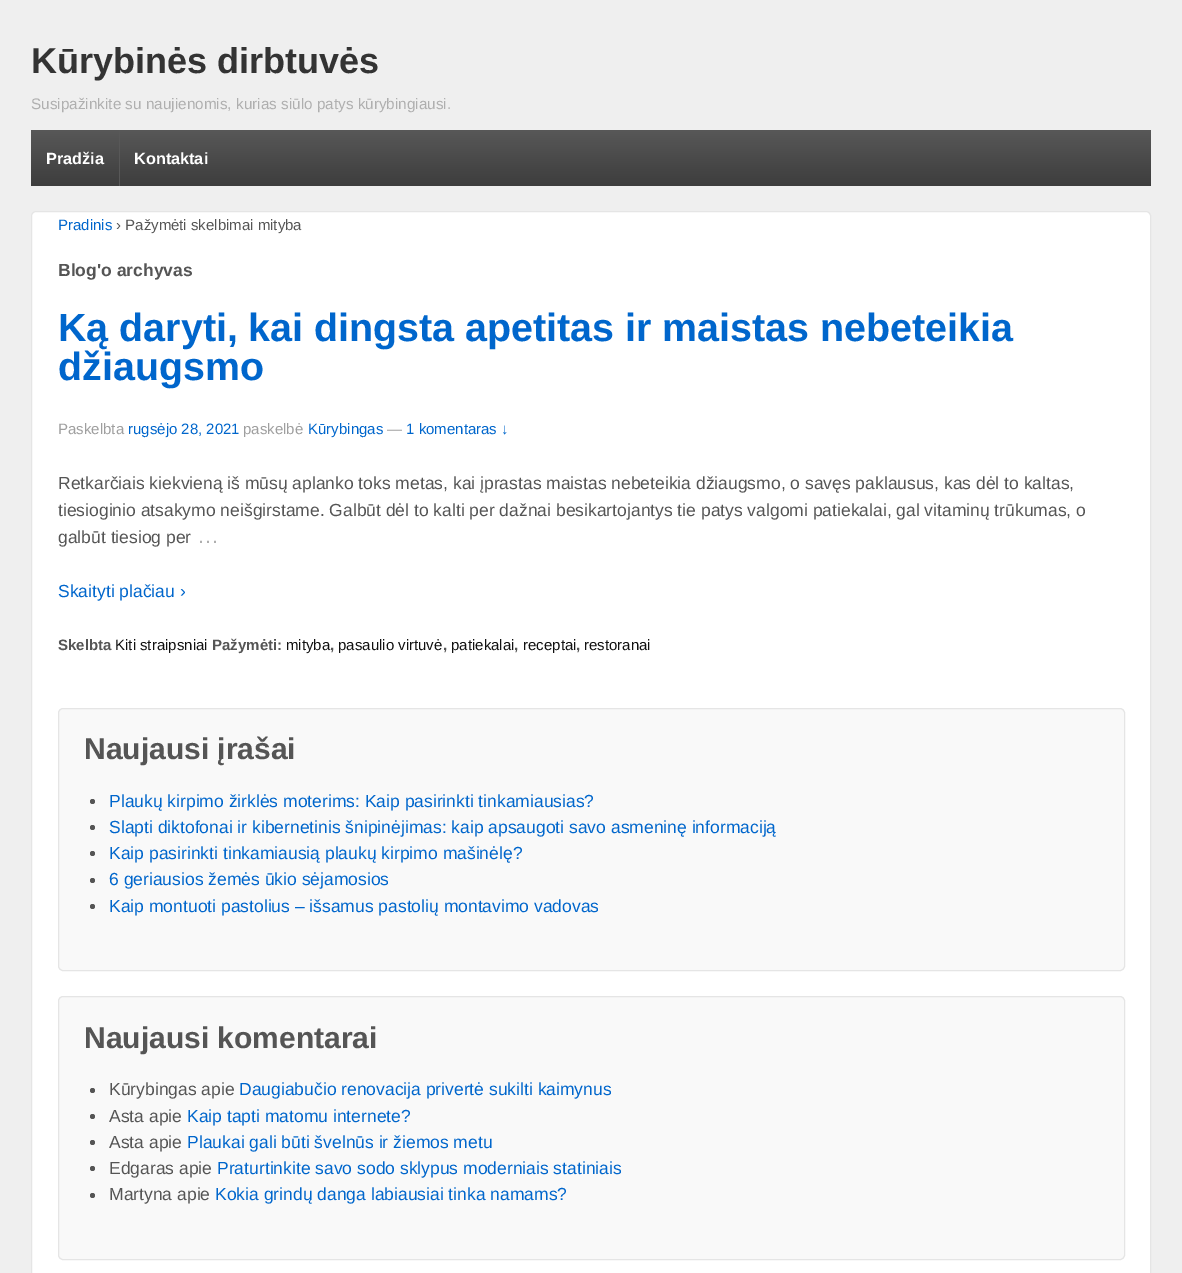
%!PS
<< /PageSize [1182 1273] >> setpagedevice
/rgb { 3 { 255 div 3 1 roll } repeat setrgbcolor } def
/font { [ exch dup neg 0 0 3 -1 roll 0 0 ] selectfont } def
/circle { newpath 0 360 arc closepath } def
/roundrect { 5 dict begin { /r /h /w /y /x } { exch def } forall
  x r add y moveto x w add y 2 copy h add r arct x w add y h add x 1 index r arct
  x y h add x y r arct x y 2 copy exch w add exch r arct closepath end } def
0 1273 translate 1 -1 scale
4 setmiterlimit
239 239 239 rgb
0 0 1182 1273 rectfill
gsave 31 130 moveto 1151 130 lineto 1151 186 lineto 31 186 lineto closepath clip newpath
<< /ShadingType 2 /ColorSpace /DeviceRGB /Coords [591 130 591 186] /Extend [true true] /Function << /FunctionType 2 /Domain [0 1] /C0 [0.345 0.345 0.345] /C1 [0.239 0.239 0.239] /N 1 >> >> shfill grestore
88 88 88 rgb
119 130 1 56 rectfill
255 255 255 rgb
31.5 211.5 1119 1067 4.5 roundrect gsave fill grestore
229 229 229 rgb
stroke
249 249 249 rgb
58.5 708.5 1066 262 4.5 roundrect gsave fill grestore
229 229 229 rgb
stroke
85 85 85 rgb
92.5 801.5 2.5 circle fill
92.5 827.5 2.5 circle fill
92.5 853.5 2.5 circle fill
92.5 880.5 2.5 circle fill
92.5 906.5 2.5 circle fill
249 249 249 rgb
58.5 996.5 1066 263 4.5 roundrect gsave fill grestore
229 229 229 rgb
stroke
85 85 85 rgb
92.5 1090.5 2.5 circle fill
92.5 1116.5 2.5 circle fill
92.5 1142.5 2.5 circle fill
92.5 1168.5 2.5 circle fill
92.5 1195.5 2.5 circle fill
/LiberationSans-Bold 36 font
51 51 51 rgb
31 73 moveto (Kūrybinės dirbtuvės) show
/LiberationSans-Regular 15.3 font
175 175 175 rgb
31 109 moveto (Susipažinkite su naujienomis, kurias siūlo patys kūrybingiausi.) show
/LiberationSans-Bold 16.25 font
255 255 255 rgb
46 164 moveto (Pradžia) show
134 164 moveto (Kontaktai) show
/LiberationSans-Regular 15 font
0 102 204 rgb
58 230 moveto (Pradinis) show
85 85 85 rgb
116 230 moveto (› Pažymėti skelbimai mityba) show
/LiberationSans-Bold 17.5 font
58 276 moveto (Blog'o archyvas) show
/LiberationSans-Bold 39.4 font
0 102 204 rgb
58 341 moveto (Ką daryti, kai dingsta apetitas ir maistas nebeteikia) show
58 380 moveto (džiaugsmo) show
/LiberationSans-Regular 15 font
159 159 159 rgb
58 434 moveto (Paskelbta) show
0 102 204 rgb
128 434 moveto (rugsėjo 28, 2021) show
159 159 159 rgb
243 434 moveto (paskelbė) show
0 102 204 rgb
308 434 moveto (Kūrybingas) show
159 159 159 rgb
387 434 moveto (—) show
0 102 204 rgb
406 434 moveto (1 komentaras ↓) show
/LiberationSans-Regular 17.5 font
85 85 85 rgb
[
  [(Retkarčiais kiekvieną iš mūsų aplanko toks metas, kai įprastas maistas nebeteikia džiaugsmo, o savęs paklausus, kas dėl to kaltas,) 58 489]
  [(tiesioginio atsakymo neišgirstame. Galbūt dėl to kalti per dažnai besikartojantys tie patys valgomi patiekalai, gal vitaminų trūkumas, o) 58 516]
  [(galbūt tiesiog per) 58 543]
] { aload pop moveto show } forall
/LiberationSans-Regular 22 font
175 175 175 rgb
197 543 moveto (…) show
/LiberationSans-Regular 17.5 font
0 102 204 rgb
58 597 moveto (Skaityti plačiau ›) show
/LiberationSans-Bold 15 font
85 85 85 rgb
58 650 moveto (Skelbta) show
/LiberationSans-Regular 15 font
17 17 17 rgb
115 650 moveto (Kiti straipsniai) show
/LiberationSans-Bold 15 font
85 85 85 rgb
212 650 moveto (Pažymėti:) show
/LiberationSans-Regular 15 font
17 17 17 rgb
286 650 moveto (mityba) show
/LiberationSans-Bold 15 font
85 85 85 rgb
330 650 moveto (,) show
/LiberationSans-Regular 15 font
17 17 17 rgb
338 650 moveto (pasaulio virtuvė) show
/LiberationSans-Bold 15 font
85 85 85 rgb
443 650 moveto (,) show
/LiberationSans-Regular 15 font
17 17 17 rgb
451 650 moveto (patiekalai) show
/LiberationSans-Bold 15 font
85 85 85 rgb
514 650 moveto (,) show
/LiberationSans-Regular 15 font
17 17 17 rgb
523 650 moveto (receptai) show
/LiberationSans-Bold 15 font
85 85 85 rgb
576 650 moveto (,) show
/LiberationSans-Regular 15 font
17 17 17 rgb
584 650 moveto (restoranai) show
/LiberationSans-Bold 30 font
85 85 85 rgb
84 759 moveto (Naujausi įrašai) show
/LiberationSans-Regular 17.5 font
0 102 204 rgb
[
  [(Plaukų kirpimo žirklės moterims: Kaip pasirinkti tinkamiausias?) 109 807]
  [(Slapti diktofonai ir kibernetinis šnipinėjimas: kaip apsaugoti savo asmeninę informaciją) 109 833]
  [(Kaip pasirinkti tinkamiausią plaukų kirpimo mašinėlę?) 109 859]
  [(6 geriausios žemės ūkio sėjamosios) 109 885]
  [(Kaip montuoti pastolius – išsamus pastolių montavimo vadovas) 109 912]
] { aload pop moveto show } forall
/LiberationSans-Bold 30 font
85 85 85 rgb
84 1048 moveto (Naujausi komentarai) show
/LiberationSans-Regular 17.5 font
109 1095 moveto (Kūrybingas apie) show
0 102 204 rgb
239 1095 moveto (Daugiabučio renovacija privertė sukilti kaimynus) show
85 85 85 rgb
109 1122 moveto (Asta apie) show
0 102 204 rgb
187 1122 moveto (Kaip tapti matomu internete?) show
85 85 85 rgb
109 1148 moveto (Asta apie) show
0 102 204 rgb
187 1148 moveto (Plaukai gali būti švelnūs ir žiemos metu) show
85 85 85 rgb
109 1174 moveto (Edgaras apie) show
0 102 204 rgb
217 1174 moveto (Praturtinkite savo sodo sklypus moderniais statiniais) show
85 85 85 rgb
109 1200 moveto (Martyna apie) show
0 102 204 rgb
215 1200 moveto (Kokia grindų danga labiausiai tinka namams?) show
showpage
